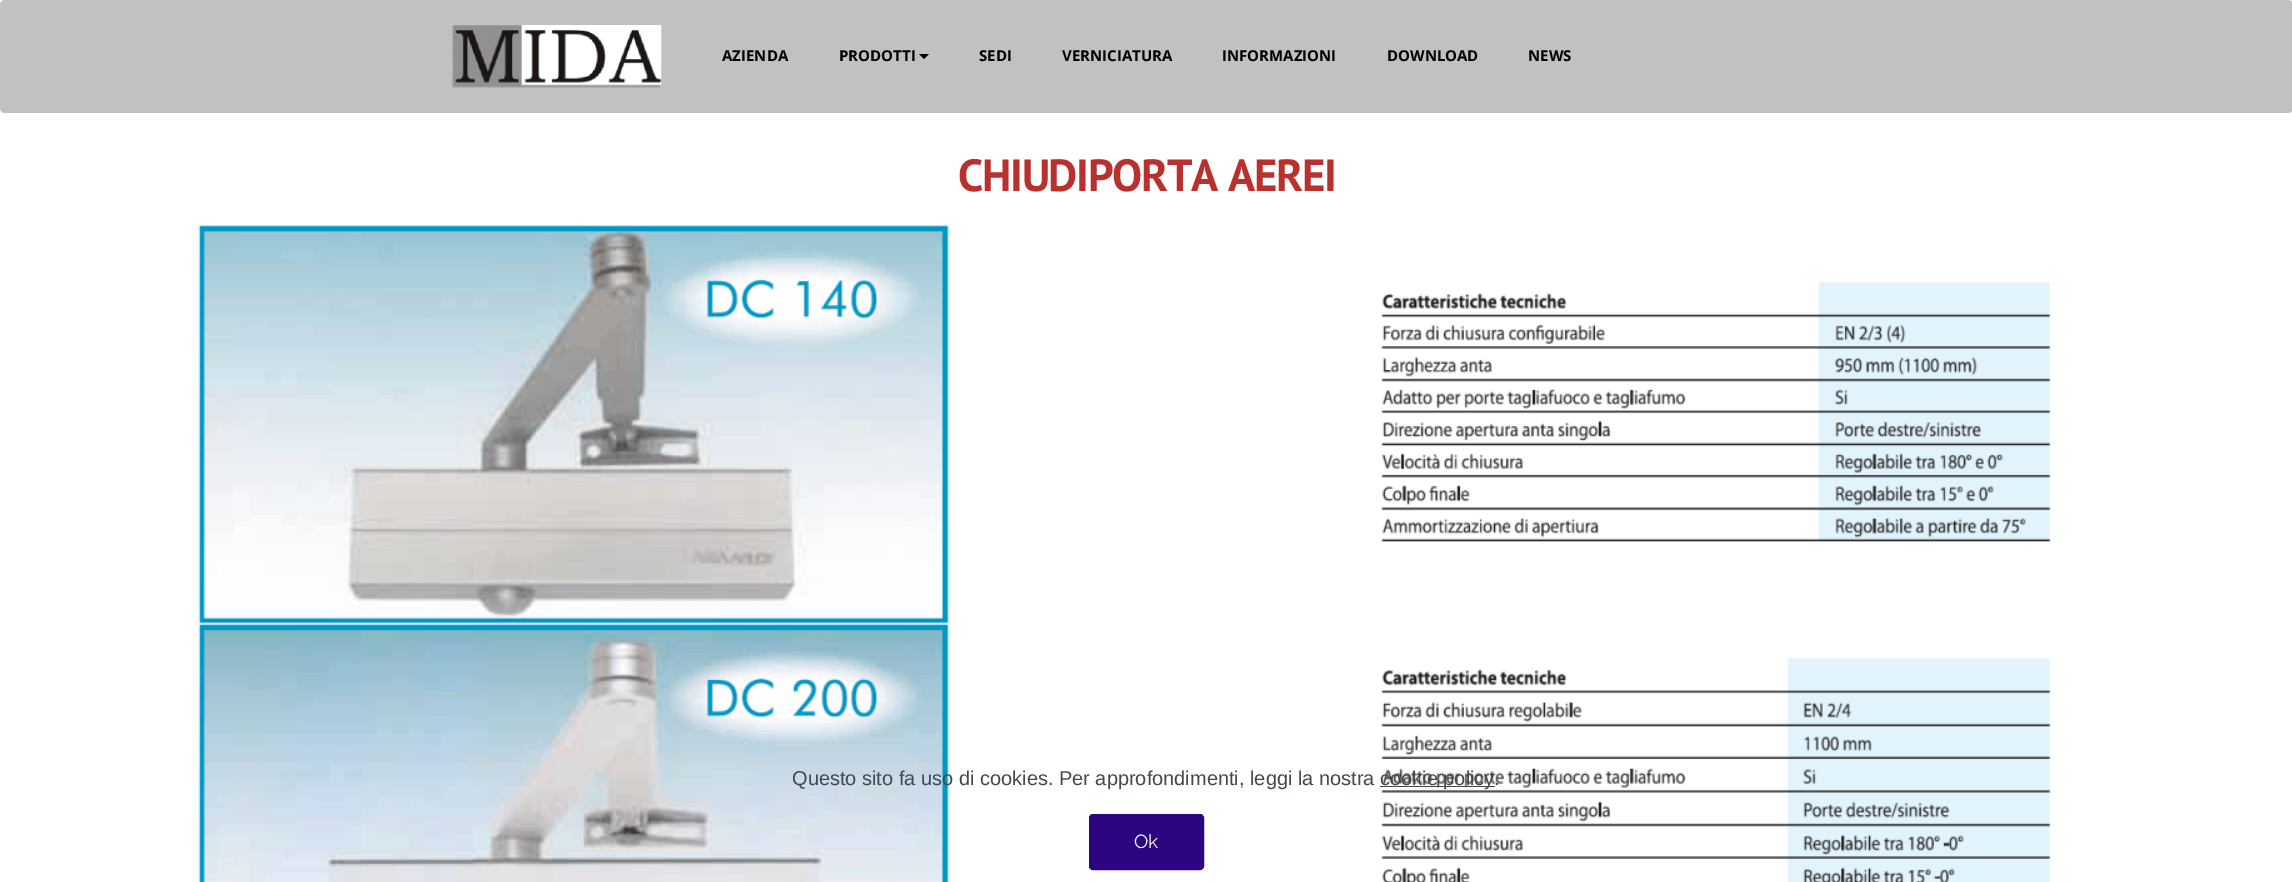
%!PS
<< /PageSize [2292 882] >> setpagedevice
/rgb { 3 { 255 div 3 1 roll } repeat setrgbcolor } def
/font { [ exch dup neg 0 0 3 -1 roll 0 0 ] selectfont } def
/roundrect { 5 dict begin { /r /h /w /y /x } { exch def } forall
  x r add y moveto x w add y 2 copy h add r arct x w add y h add x 1 index r arct
  x y h add x y r arct x y 2 copy exch w add exch r arct closepath end } def
/picture { 5 dict begin { /h /w /y /x /name } { exch def } forall
  gsave x y translate w h scale
  w h 8 [w 0 0 h 0 0] name (r) file false 3 colorimage grestore end } def
0 882 translate 1 -1 scale
4 setmiterlimit
255 255 255 rgb
0 0 2292 882 rectfill
193 193 193 rgb
0 0 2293 113 5 roundrect fill
(img/1.rgb) 452 25 210 63 picture
0 0 0 rgb
919 54 moveto 929 54 lineto 924 59 lineto closepath fill
(img/2.rgb) 198 225 751 399 picture
(img/3.rgb) 1381 281 670 261 picture
(img/4.rgb) 198 623 751 259 picture
(img/5.rgb) 1381 657 670 225 picture
66 74 77 rgb
1380 786 115 1 rectfill
43 6 128 rgb
1089.5 814.5 114 55 3.5 roundrect gsave fill grestore
stroke
/OpenSans-Bold 15 font
0 0 0 rgb
[
  [(AZIENDA) 722 61]
  [(PRODOTTI) 839 61]
  [(SEDI) 979 61]
  [(VERNICIATURA) 1062 61]
  [(INFORMAZIONI) 1222 61]
  [(DOWNLOAD) 1387 61]
  [(NEWS) 1528 61]
] { aload pop moveto show } forall
/PTSans-Bold 45 font
184 49 47 rgb
958 191 moveto -1.25 0 (CHIUDIPORTA AEREI) ashow
/LiberationSans-Regular 20 font
66 74 77 rgb
792 785 moveto (Questo sito fa uso di cookies. Per approfondimenti, leggi la nostra) show
1380 785 moveto (cookie policy.) show
/Raleway-Regular 19 font
255 255 255 rgb
1134 848 moveto (Ok) show
showpage
